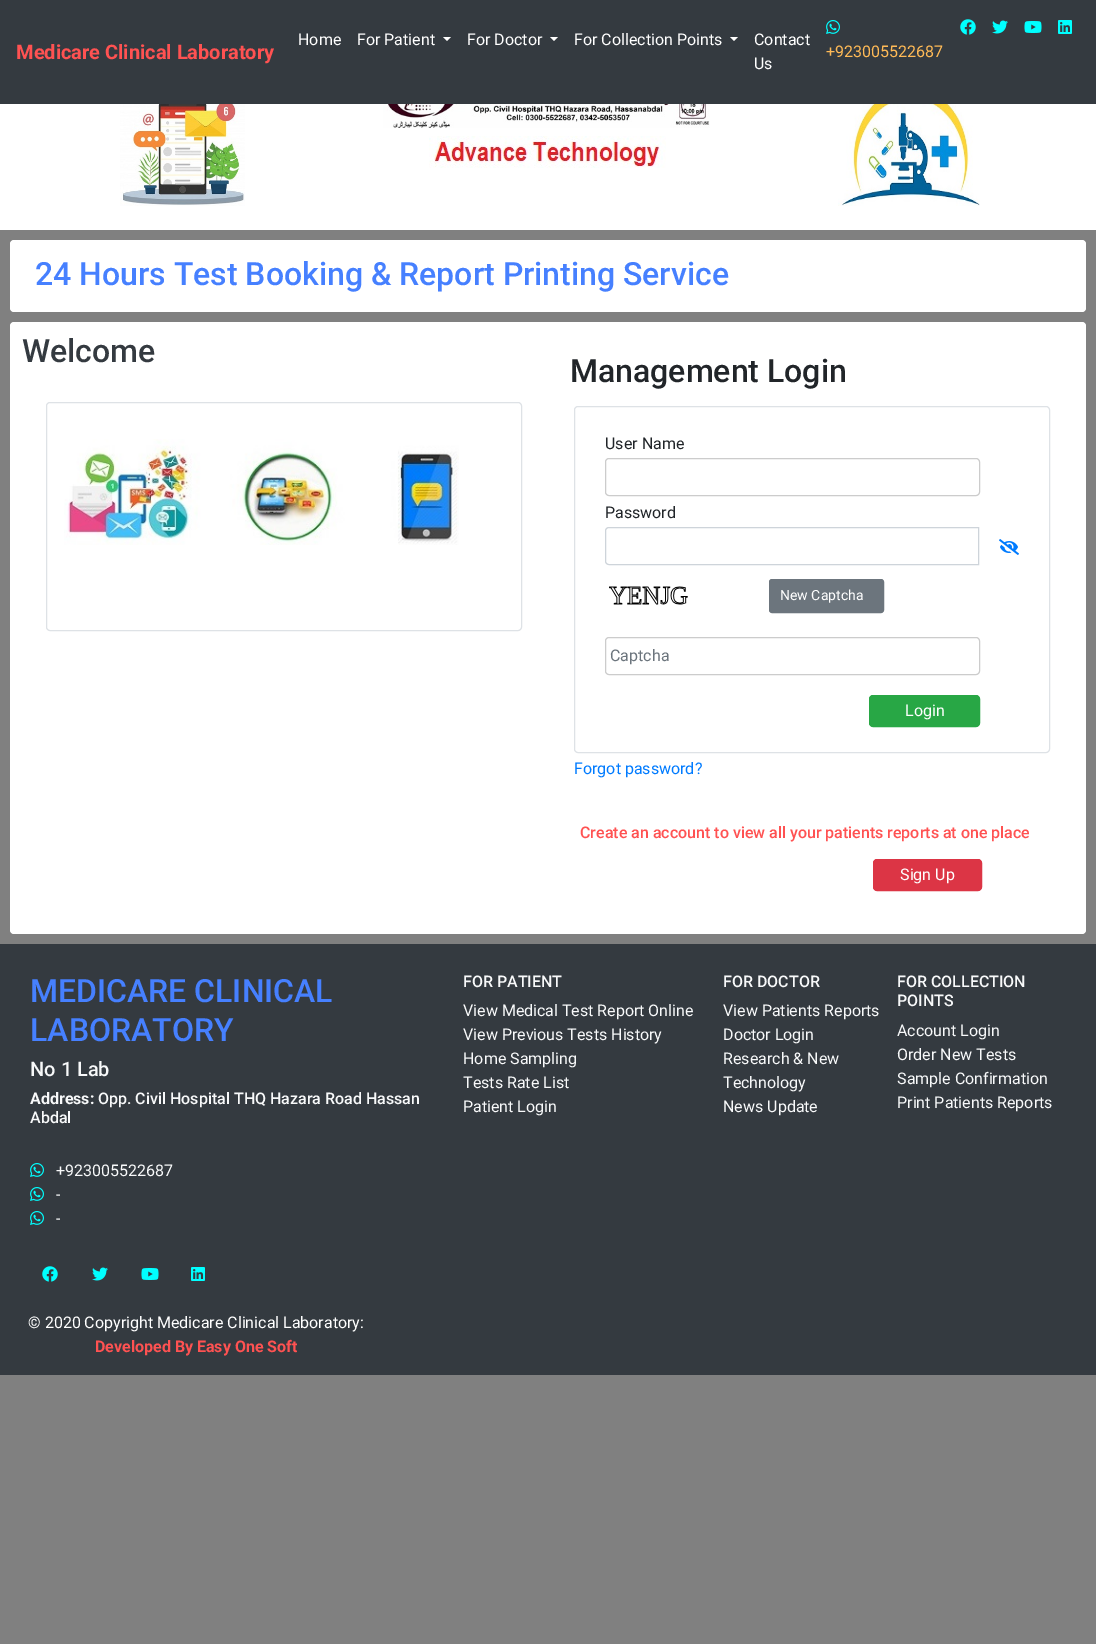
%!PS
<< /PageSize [1096 1644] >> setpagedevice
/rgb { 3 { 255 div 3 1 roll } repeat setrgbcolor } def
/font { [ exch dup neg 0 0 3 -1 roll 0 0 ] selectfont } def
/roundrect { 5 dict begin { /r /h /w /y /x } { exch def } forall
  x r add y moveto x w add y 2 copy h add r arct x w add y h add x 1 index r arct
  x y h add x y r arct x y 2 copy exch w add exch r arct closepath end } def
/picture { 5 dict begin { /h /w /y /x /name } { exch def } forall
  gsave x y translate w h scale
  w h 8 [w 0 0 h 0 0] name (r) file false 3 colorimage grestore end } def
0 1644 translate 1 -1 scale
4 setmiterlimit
128 128 128 rgb
0 0 1096 1644 rectfill
52 58 64 rgb
0 0 1096 104 rectfill
255 255 255 rgb
443 37 moveto 451 37 lineto 447 41 lineto closepath fill
550 37 moveto 558 37 lineto 554 41 lineto closepath fill
730 37 moveto 738 37 lineto 734 41 lineto closepath fill
(img/1.rgb) 960 19 16 16 picture
(img/2.rgb) 992 20 16 14 picture
(img/3.rgb) 1024 21 18 12 picture
(img/4.rgb) 1058 20 14 14 picture
(img/5.rgb) 826 20 14 14 picture
0 104 1096 126 rectfill
(img/6.rgb) 120 104 125 102 picture
(img/7.rgb) 383 104 327 24 picture
(img/8.rgb) 429 136 237 32 picture
(img/9.rgb) 838 104 142 102 picture
10 240 1076 72 4 roundrect fill
10 322 1076 612 4 roundrect fill
222 226 230 rgb
46.5 402.5 475 228 3.5 roundrect stroke
(img/10.rgb) 64 439 395 106 picture
574.5 406.5 475 346 3.5 roundrect stroke
204 204 204 rgb
605.5 458.5 374 37 3.5 roundrect stroke
206 212 218 rgb
609 527.5 moveto 978.5 527.5 lineto 978.5 564.5 lineto 609 564.5 lineto 607 564.5 605.5 563 605.5 561 curveto 605.5 531 lineto 605.5 529 607 527.5 609 527.5 curveto closepath stroke
(img/11.rgb) 999 539 20 16 picture
(img/12.rgb) 609 586 79 19 picture
108 117 125 rgb
769.5 579.5 114 33 2.5 roundrect gsave fill grestore
stroke
204 204 204 rgb
605.5 637.5 374 37 3.5 roundrect stroke
40 167 69 rgb
869.5 695.5 110 31 3.5 roundrect gsave fill grestore
stroke
220 53 69 rgb
873.5 859.5 108 31 3.5 roundrect gsave fill grestore
stroke
52 58 64 rgb
0 944 1096 431 rectfill
(img/5.rgb) 30 1163 14 14 picture
(img/5.rgb) 30 1187 14 14 picture
(img/5.rgb) 30 1211 14 14 picture
(img/1.rgb) 42 1266 16 16 picture
(img/2.rgb) 92 1267 16 14 picture
(img/3.rgb) 141 1268 18 12 picture
(img/4.rgb) 191 1267 14 14 picture
/Roboto-Bold 20 font
255 82 82 rgb
16 59 moveto (Medicare Clinical Laboratory) show
/Roboto-Regular 16 font
255 255 255 rgb
[
  [(Home) 298 45]
  [(For Patient) 357 45]
  [(For Doctor) 467 45]
  [(For Collection Points) 574 45]
  [(Contact) 754 45]
  [(Us) 754 69]
] { aload pop moveto show } forall
255 186 87 rgb
826 57 moveto (+923005522687) show
/Roboto-Medium 32 font
70 128 255 rgb
35 285 moveto (24 Hours Test Booking & Report Printing Service) show
52 58 64 rgb
22 362 moveto (Welcome) show
33 37 41 rgb
570 382 moveto (Management Login) show
/Roboto-Regular 16 font
605 449 moveto (User Name) show
605 518 moveto (Password) show
/Roboto-Regular 14 font
255 255 255 rgb
780 600 moveto (New Captcha) show
/Roboto-Regular 16 font
108 117 125 rgb
610 661 moveto (Captcha) show
255 255 255 rgb
905 716 moveto (Login) show
0 123 255 rgb
574 774 moveto (Forgot password?) show
/Roboto-Medium 16 font
255 82 82 rgb
580 838 moveto (Create an account to view all your patients reports at one place) show
/Roboto-Regular 16 font
255 255 255 rgb
900 880 moveto (Sign Up) show
/Roboto-Medium 32 font
70 128 255 rgb
30 1002 moveto (MEDICARE CLINICAL) show
30 1041 moveto (LABORATORY) show
/Roboto-Medium 20 font
248 249 250 rgb
30 1076 moveto (No 1 Lab) show
/Roboto-Bold 16 font
30 1104 moveto (Address:) show
/Roboto-Medium 16 font
98 1104 moveto (Opp. Civil Hospital THQ Hazara Road Hassan) show
30 1123 moveto (Abdal) show
/Roboto-Regular 16 font
[
  [(+923005522687) 56 1176]
  [(-) 56 1200]
  [(-) 56 1224]
] { aload pop moveto show } forall
/Roboto-Medium 16 font
463 987 moveto (FOR PATIENT) show
/Roboto-Regular 16 font
[
  [(View Medical Test Report Online) 463 1016]
  [(View Previous Tests History) 463 1040]
  [(Home Sampling) 463 1064]
  [(Tests Rate List) 463 1088]
  [(Patient Login) 463 1112]
] { aload pop moveto show } forall
/Roboto-Medium 16 font
723 987 moveto (FOR DOCTOR) show
/Roboto-Regular 16 font
[
  [(View Patients Reports) 723 1016]
  [(Doctor Login) 723 1040]
  [(Research & New) 723 1064]
  [(Technology) 723 1088]
  [(News Update) 723 1112]
] { aload pop moveto show } forall
/Roboto-Medium 16 font
897 987 moveto (FOR COLLECTION) show
897 1006 moveto (POINTS) show
/Roboto-Regular 16 font
[
  [(Account Login) 897 1036]
  [(Order New Tests) 897 1060]
  [(Sample Confirmation) 897 1084]
  [(Print Patients Reports) 897 1108]
] { aload pop moveto show } forall
255 255 255 rgb
28 1328 moveto (© 2020 Copyright Medicare Clinical Laboratory:) show
/Roboto-Bold 16 font
255 82 82 rgb
95 1352 moveto (Developed By Easy One Soft) show
showpage
